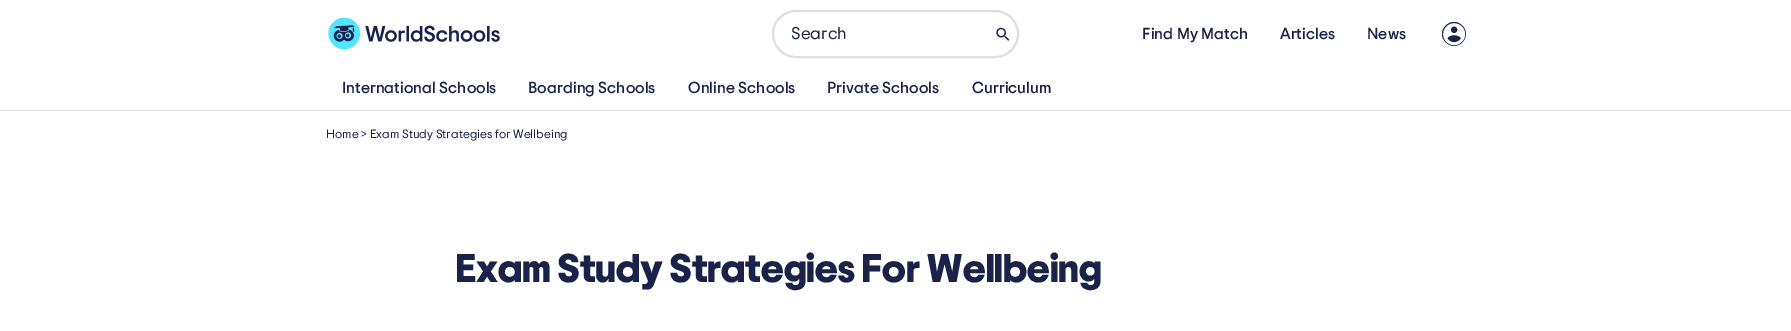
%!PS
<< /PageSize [1791 331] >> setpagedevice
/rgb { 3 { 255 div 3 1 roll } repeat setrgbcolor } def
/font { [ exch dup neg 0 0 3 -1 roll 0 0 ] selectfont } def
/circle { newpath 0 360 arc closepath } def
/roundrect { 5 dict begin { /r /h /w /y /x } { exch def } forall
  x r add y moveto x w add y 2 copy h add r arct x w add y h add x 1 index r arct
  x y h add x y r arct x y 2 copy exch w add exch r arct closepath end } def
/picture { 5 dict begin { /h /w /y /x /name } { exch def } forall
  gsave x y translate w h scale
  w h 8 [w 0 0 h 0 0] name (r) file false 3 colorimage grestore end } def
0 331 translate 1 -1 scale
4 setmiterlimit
255 255 255 rgb
0 0 1791 331 rectfill
(img/1.rgb) 328 17 172 33 picture
221 222 228 rgb
2 setlinewidth
773 11 245 46 23 roundrect stroke
(img/2.rgb) 996 27 14 14 picture
26 34 73 rgb
1454 34 12 circle fill
(img/3.rgb) 1443 23 23 23 picture
221 222 228 rgb
0 110 1791 1 rectfill
/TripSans-Regular 17 font
26 34 73 rgb
791 39 moveto (Search) show
/TripSans-SemiBold 16 font
[
  [(Find My Match) 1142 39]
  [(Articles) 1280 39]
  [(News) 1367 39]
  [(International Schools) 342 93]
  [(Boarding Schools) 528 93]
  [(Online Schools) 688 93]
  [(Private Schools) 827 93]
  [(Curriculum) 972 93]
] { aload pop moveto show } forall
/TripSans-Regular 12 font
326 138 moveto (Home > Exam Study Strategies for Wellbeing) show
/TripSans-Black 40 font
456 282 moveto (Exam Study Strategies For Wellbeing) show
showpage
